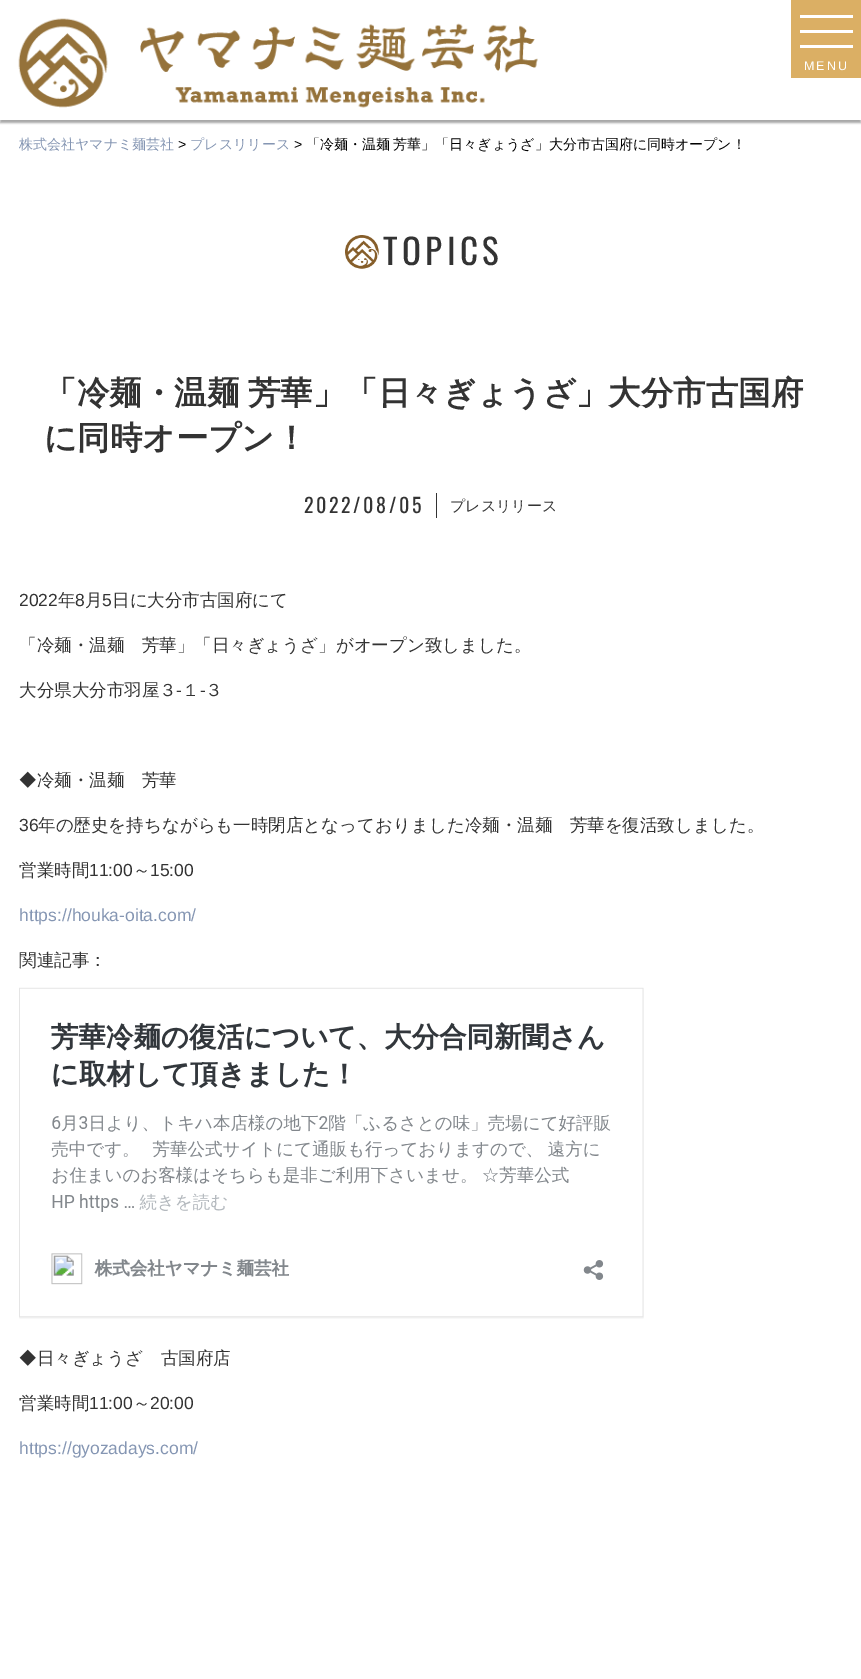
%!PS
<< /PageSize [861 1679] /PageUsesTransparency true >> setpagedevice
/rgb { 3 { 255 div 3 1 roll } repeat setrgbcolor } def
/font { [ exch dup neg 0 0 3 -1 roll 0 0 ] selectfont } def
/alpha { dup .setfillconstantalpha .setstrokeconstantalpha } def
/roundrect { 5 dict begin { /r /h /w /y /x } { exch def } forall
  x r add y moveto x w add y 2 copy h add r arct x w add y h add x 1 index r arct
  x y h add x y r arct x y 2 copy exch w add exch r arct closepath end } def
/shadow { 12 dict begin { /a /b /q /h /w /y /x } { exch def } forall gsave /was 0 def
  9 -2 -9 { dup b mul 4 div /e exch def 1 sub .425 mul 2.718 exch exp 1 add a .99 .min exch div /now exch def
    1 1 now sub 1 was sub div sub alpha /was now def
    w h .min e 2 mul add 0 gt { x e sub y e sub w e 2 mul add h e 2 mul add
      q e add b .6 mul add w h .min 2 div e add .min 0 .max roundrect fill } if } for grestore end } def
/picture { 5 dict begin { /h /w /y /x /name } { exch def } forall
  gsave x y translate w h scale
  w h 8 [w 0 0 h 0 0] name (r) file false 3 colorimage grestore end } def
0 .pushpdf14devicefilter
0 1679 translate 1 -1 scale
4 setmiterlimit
255 255 255 rgb
0 0 861 1679 rectfill
gsave
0 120 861 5 rectclip
165 165 165 rgb
0 3 861 120 0 1 1 shadow
grestore
(img/1.rgb) 18 18 520 90 picture
[
  [791 0 70 78 219 175 100]
  [800 15 53 3 255 255 255]
  [800 30 53 3 255 255 255]
  [800 45 53 3 255 255 255]
] { aload pop rgb rectfill } forall
(img/2.rgb) 345 235 34 34 picture
51 51 51 rgb
436 493 1 25 rectfill
(img/3.rgb) 19 987 625 332 picture
/LiberationSans-Regular 12.5 font
255 255 255 rgb
804 70 moveto 2 0 (MENU) ashow
/WenQuanYiZenHei-Medium 14 font
133 150 179 rgb
19 149 moveto (株式会社ヤマナミ麺芸社) show
/LiberationSans-Regular 14 font
0 0 0 rgb
178 149 moveto (>) show
/WenQuanYiZenHei-Medium 14 font
133 150 179 rgb
190 149 moveto (プレスリリース) show
/LiberationSans-Regular 14 font
0 0 0 rgb
294 149 moveto (>) show
/WenQuanYiZenHei-Medium 14 font
306 149 moveto -1 0 32 (「冷麺・温麺 芳華」「日々ぎょうざ」大分市古国府に同時オープン！) widthshow
/Oswald-Regular 35 font
51 51 51 rgb
383 265 moveto 4.5 0 (TOPICS) ashow
/WenQuanYiZenHei-Bold 32.5 font
44 404 moveto -1 0 32 (「冷麺・温麺 芳華」「日々ぎょうざ」大分市古国府) widthshow
44 449 moveto (に同時オープン！) show
/Oswald-Regular 20 font
304 513 moveto 2.6 0 (2022/08/05) ashow
/WenQuanYiZenHei-Medium 15 font
450 511 moveto (プレスリリース) show
/LiberationSans-Regular 17.5 font
19 606 moveto (2022) show
/WenQuanYiZenHei-Medium 17.5 font
58 606 moveto (年) show
/LiberationSans-Regular 17.5 font
75 606 moveto (8) show
/WenQuanYiZenHei-Medium 17.5 font
85 606 moveto (月) show
/LiberationSans-Regular 17.5 font
102 606 moveto (5) show
/WenQuanYiZenHei-Medium 17.5 font
[
  [(日に大分市古国府にて) 112 606]
  [(「冷麺・温麺　芳華」「日々ぎょうざ」がオープン致しました。) 19 651]
  [(大分県大分市羽屋３) 19 696]
] { aload pop moveto show } forall
/LiberationSans-Regular 17.5 font
176 696 moveto (-) show
/WenQuanYiZenHei-Medium 17.5 font
182 696 moveto (１) show
/LiberationSans-Regular 17.5 font
200 696 moveto (-) show
/WenQuanYiZenHei-Medium 17.5 font
205 696 moveto (３) show
19 786 moveto (◆冷麺・温麺　芳華) show
/LiberationSans-Regular 17.5 font
19 831 moveto (36) show
/WenQuanYiZenHei-Medium 17.5 font
38 831 moveto (年の歴史を持ちながらも一時閉店となっておりました冷麺・温麺　芳華を復活致しました。) show
19 876 moveto (営業時間) show
/LiberationSans-Regular 17.5 font
89 876 moveto (11:00) show
/WenQuanYiZenHei-Medium 17.5 font
133 876 moveto (～) show
/LiberationSans-Regular 17.5 font
150 876 moveto (15:00) show
133 150 179 rgb
19 921 moveto (https://houka-oita.com/) show
/WenQuanYiZenHei-Medium 17.5 font
51 51 51 rgb
[
  [(関連記事：) 19 966]
  [(◆日々ぎょうざ　古国府店) 19 1364]
  [(営業時間) 19 1409]
] { aload pop moveto show } forall
/LiberationSans-Regular 17.5 font
89 1409 moveto (11:00) show
/WenQuanYiZenHei-Medium 17.5 font
133 1409 moveto (～) show
/LiberationSans-Regular 17.5 font
150 1409 moveto (20:00) show
133 150 179 rgb
19 1454 moveto (https://gyozadays.com/) show
.poppdf14devicefilter showpage
